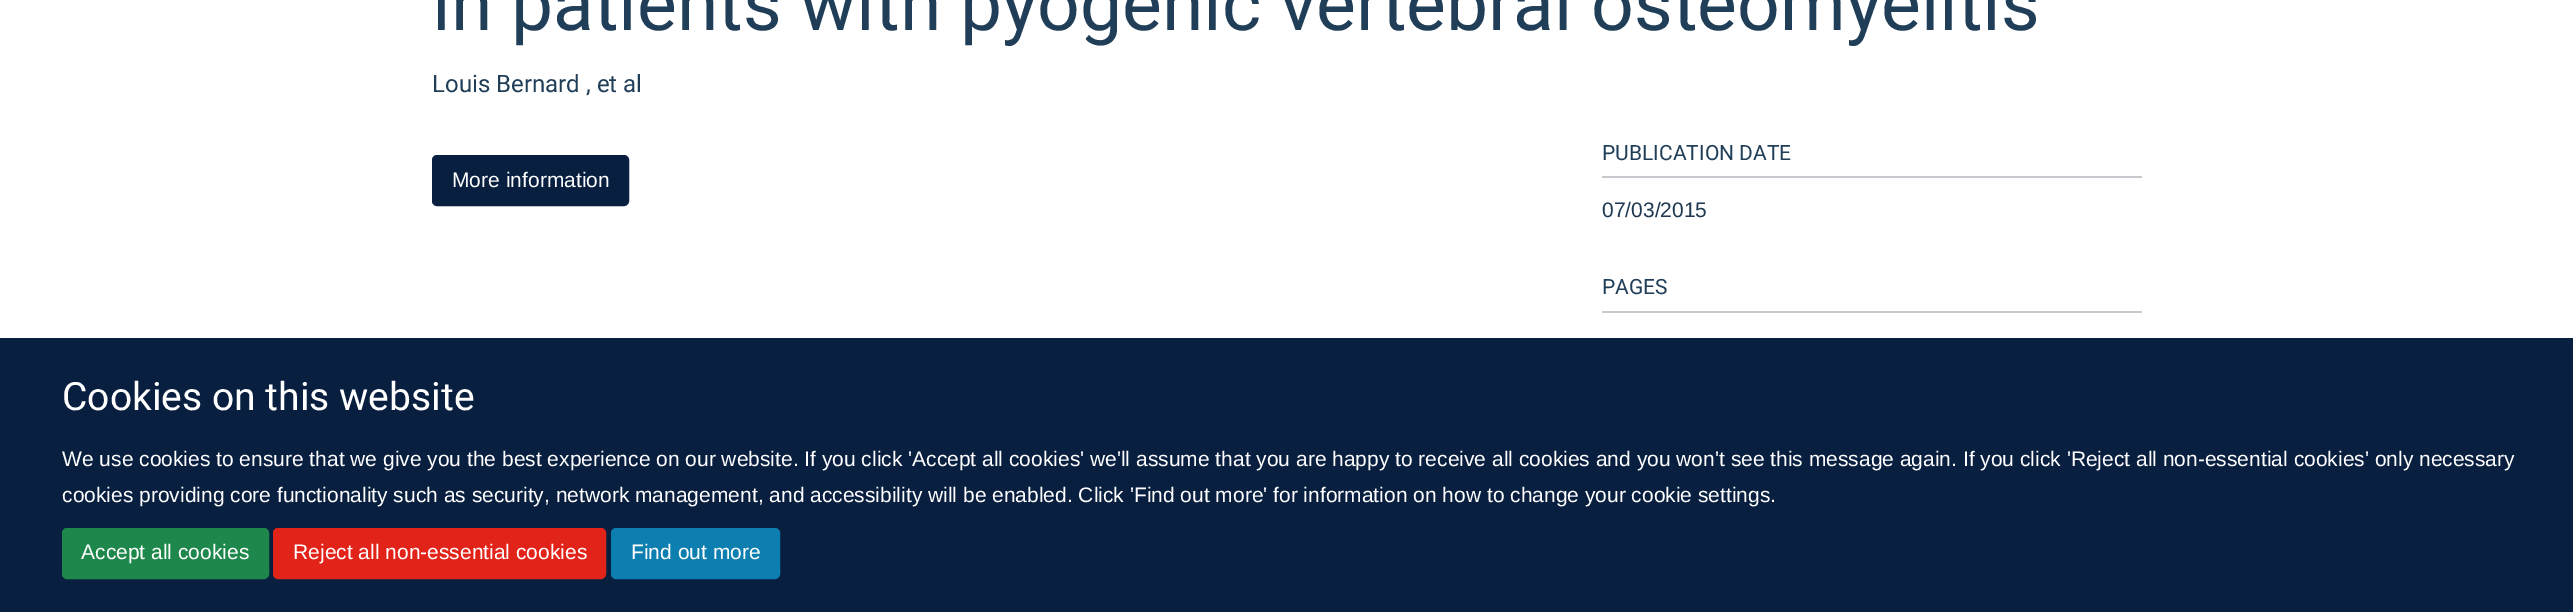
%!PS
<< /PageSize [2573 612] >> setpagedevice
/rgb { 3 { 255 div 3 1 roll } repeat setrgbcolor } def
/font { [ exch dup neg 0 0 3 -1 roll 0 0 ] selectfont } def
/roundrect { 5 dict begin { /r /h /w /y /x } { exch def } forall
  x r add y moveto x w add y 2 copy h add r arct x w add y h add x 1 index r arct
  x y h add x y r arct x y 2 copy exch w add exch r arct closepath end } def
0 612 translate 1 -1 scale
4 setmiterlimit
255 255 255 rgb
0 0 2573 612 rectfill
9 31 64 rgb
433 156 195 49 4 roundrect gsave fill grestore
2 setlinewidth
stroke
[
  [1602 176 540 2 198 202 207]
  [1602 311 540 2 198 202 207]
  [0 338 2573 274 9 31 64]
] { aload pop rgb rectfill } forall
30 135 75 rgb
63 529 205 49 4 roundrect gsave fill grestore
stroke
226 35 26 rgb
274 529 331 49 4 roundrect gsave fill grestore
stroke
13 126 176 rgb
612 529 167 49 4 roundrect gsave fill grestore
stroke
/Heebo-Regular 75 font
32 62 88 rgb
432 30 moveto (in patients with pyogenic vertebral osteomyelitis) show
/Heebo-Regular 24 font
432 92 moveto (Louis Bernard , et al) show
/LiberationSans-Regular 21 font
255 255 255 rgb
452 187 moveto (More information) show
/Heebo-Regular 21 font
32 62 88 rgb
1602 160 moveto (PUBLICATION DATE) show
/LiberationSans-Regular 21 font
29 56 80 rgb
1602 217 moveto (07/03/2015) show
/Heebo-Regular 21 font
32 62 88 rgb
1602 294 moveto (PAGES) show
/Heebo-Regular 39 font
255 255 255 rgb
62 410 moveto (Cookies on this website) show
/LiberationSans-Regular 21 font
[
  [(We use cookies to ensure that we give you the best experience on our website. If you click 'Accept all cookies' we'll assume that you are happy to receive all cookies and you won't see this message again. If you click 'Reject all non-essential cookies' only necessary) 62 466]
  [(cookies providing core functionality such as security, network management, and accessibility will be enabled. Click 'Find out more' for information on how to change your cookie settings.) 62 502]
  [(Accept all cookies) 81 559]
  [(Reject all non-essential cookies) 293 559]
  [(Find out more) 631 559]
] { aload pop moveto show } forall
showpage
